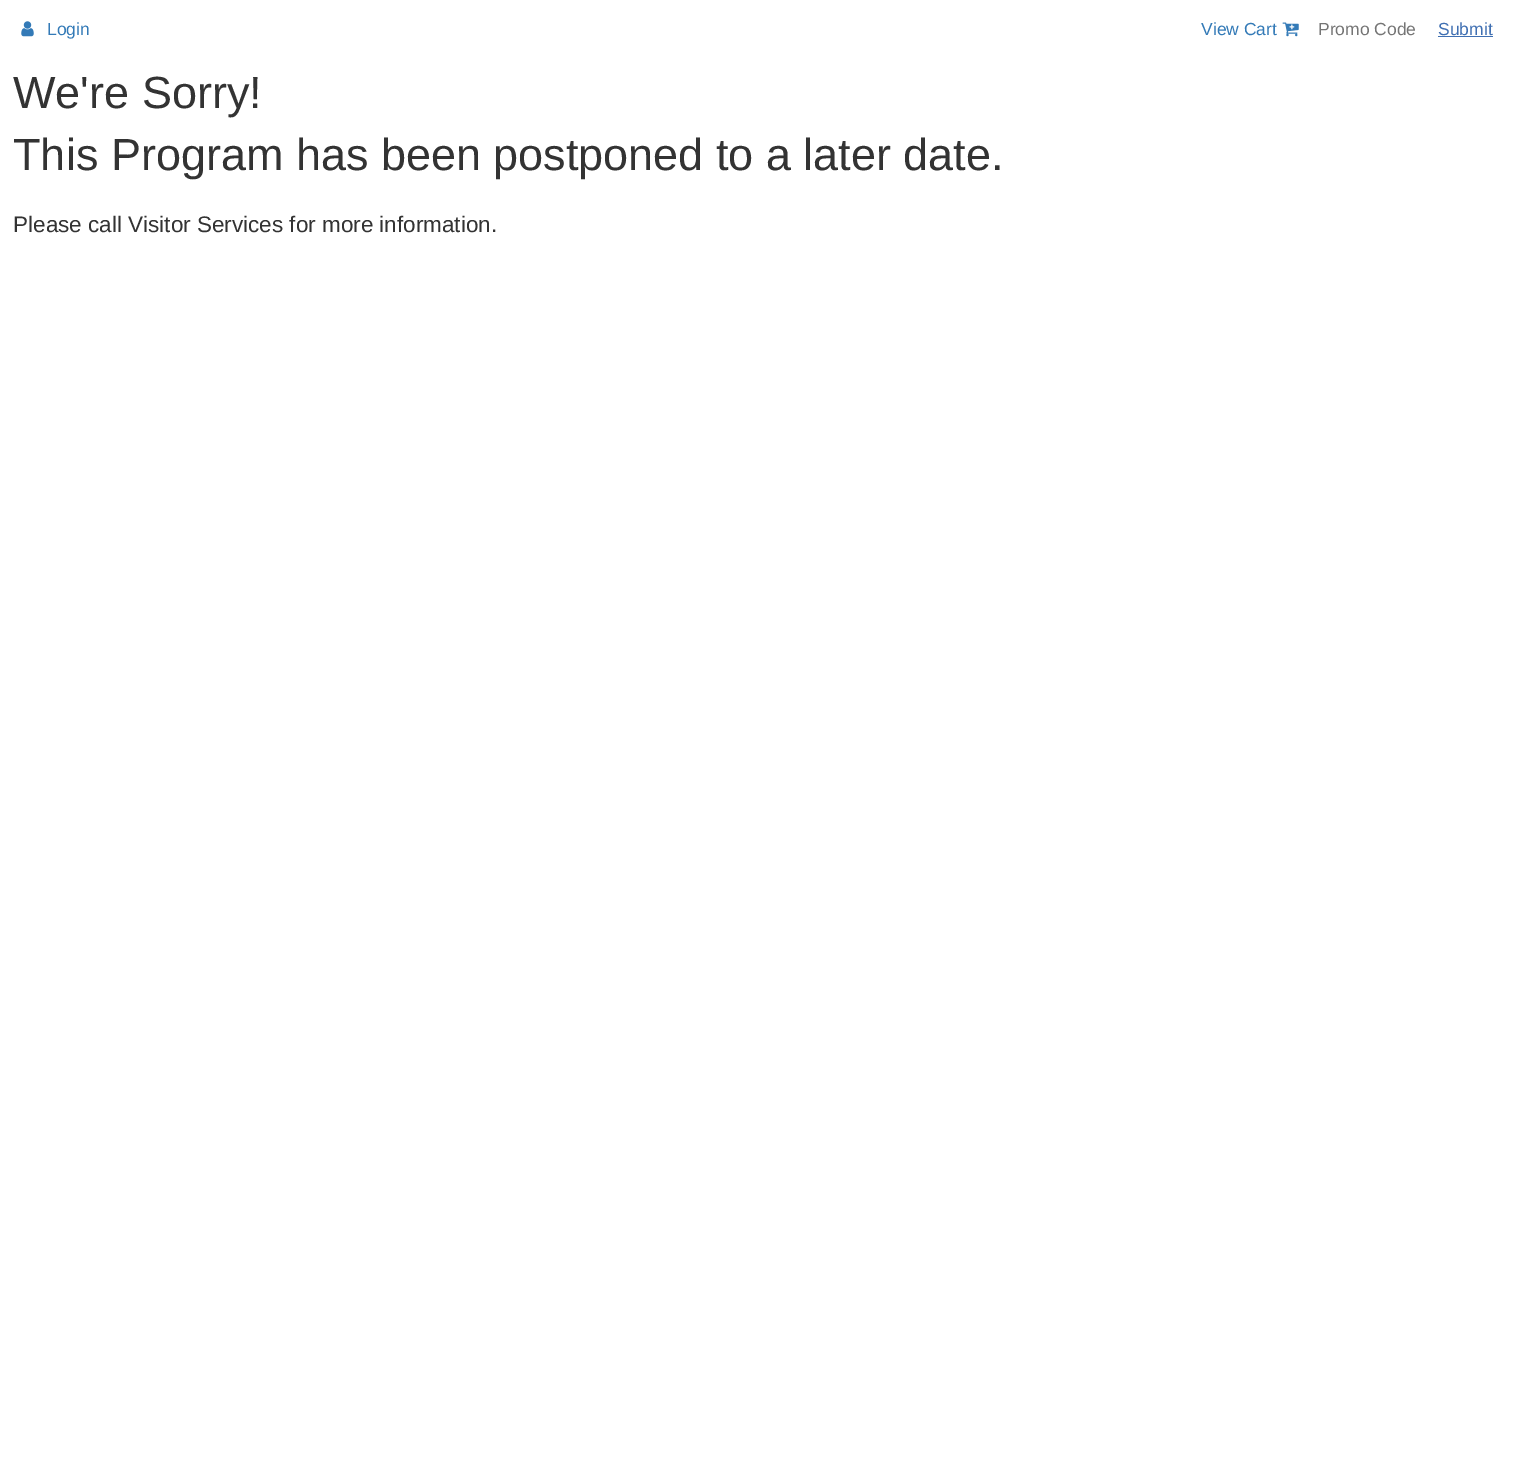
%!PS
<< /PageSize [1513 1475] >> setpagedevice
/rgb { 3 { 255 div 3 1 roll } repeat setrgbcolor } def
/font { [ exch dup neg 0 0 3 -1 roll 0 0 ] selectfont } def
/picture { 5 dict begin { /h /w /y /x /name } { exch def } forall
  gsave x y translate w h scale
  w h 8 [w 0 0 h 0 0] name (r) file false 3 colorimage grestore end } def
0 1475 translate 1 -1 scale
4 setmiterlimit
255 255 255 rgb
0 0 1513 1475 rectfill
(img/1.rgb) 21 21 13 16 picture
(img/2.rgb) 1282 22 17 15 picture
63 111 178 rgb
1438 36 55 1 rectfill
/LiberationSans-Regular 17.5 font
51 122 183 rgb
47 35 moveto (Login) show
1201 35 moveto (View Cart) show
117 117 117 rgb
1318 35 moveto (Promo Code) show
63 111 178 rgb
1438 35 moveto (Submit) show
/LiberationSans-Regular 45 font
51 51 51 rgb
13 108 moveto (We're Sorry!) show
13 170 moveto (This Program has been postponed to a later date.) show
/LiberationSans-Regular 22.5 font
13 232 moveto (Please call Visitor Services for more information.) show
showpage
